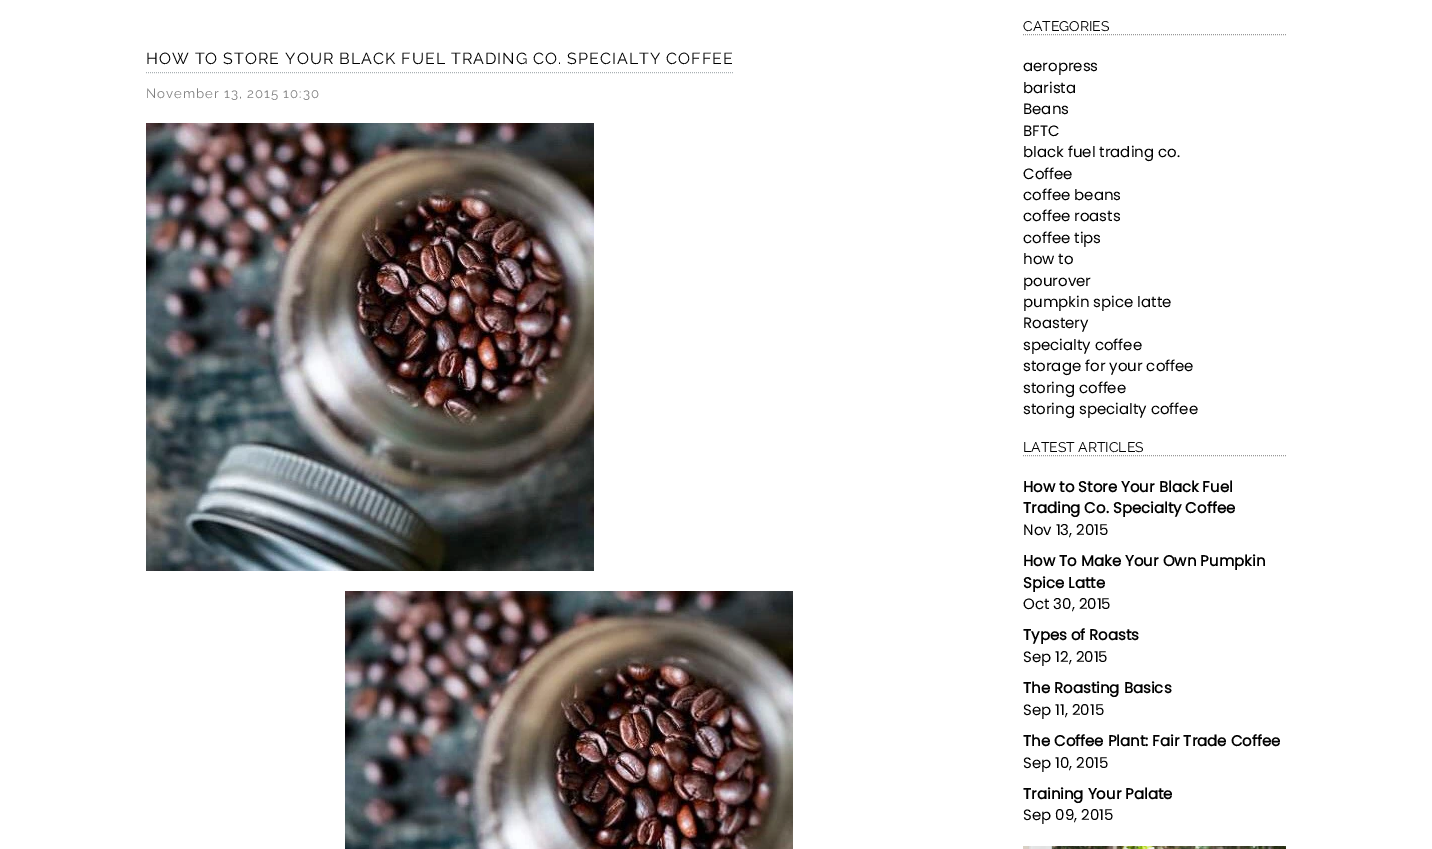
%!PS
<< /PageSize [1432 849] >> setpagedevice
/rgb { 3 { 255 div 3 1 roll } repeat setrgbcolor } def
/font { [ exch dup neg 0 0 3 -1 roll 0 0 ] selectfont } def
/picture { 5 dict begin { /h /w /y /x /name } { exch def } forall
  gsave x y translate w h scale
  w h 8 [w 0 0 h 0 0] name (r) file false 3 colorimage grestore end } def
0 849 translate 1 -1 scale
4 setmiterlimit
255 255 255 rgb
0 0 1432 849 rectfill
170 177 180 rgb
[1 1] 0 setdash
146 72.5 moveto 733 72.5 lineto stroke
(img/1.rgb) 146 123 448 448 picture
(img/2.rgb) 345 591 448 258 picture
153 153 153 rgb
1023 34.5 moveto 1286 34.5 lineto stroke
1023 455.5 moveto 1286 455.5 lineto stroke
(img/3.rgb) 1023 846 263 3 picture
/Raleway-Thin 16 font
0 0 0 rgb
146 64 moveto 1 0 (HOW TO STORE YOUR BLACK FUEL TRADING CO. SPECIALTY COFFEE) ashow
/Raleway-Thin 13.25 font
128 128 128 rgb
146 98 moveto 1 0 (November 13, 2015 10:30) ashow
/Raleway-Thin 14 font
0 0 0 rgb
1023 31 moveto (CATEGORIES) show
/Poppins-Regular 15 font
[
  [(aeropress) 1023 71]
  [(barista) 1023 93]
  [(Beans) 1023 114]
  [(BFTC) 1023 136]
  [(black fuel trading co.) 1023 157]
  [(Coffee) 1023 179]
  [(coffee beans) 1023 200]
  [(coffee roasts) 1023 221]
  [(coffee tips) 1023 243]
  [(how to) 1023 264]
  [(pourover) 1023 286]
  [(pumpkin spice latte) 1023 307]
  [(Roastery) 1023 328]
  [(specialty coffee) 1023 350]
  [(storage for your coffee) 1023 371]
  [(storing coffee) 1023 393]
  [(storing specialty coffee) 1023 414]
] { aload pop moveto show } forall
/Raleway-Thin 14 font
1023 452 moveto (LATEST ARTICLES) show
/Poppins-Bold 15 font
1023 492 moveto (How to Store Your Black Fuel) show
1023 513 moveto (Trading Co. Specialty Coffee) show
/Poppins-Regular 15 font
1023 535 moveto (Nov 13, 2015) show
/Poppins-Bold 15 font
1023 566 moveto (How To Make Your Own Pumpkin) show
1023 588 moveto (Spice Latte) show
/Poppins-Regular 15 font
1023 609 moveto (Oct 30, 2015) show
/Poppins-Bold 15 font
1023 640 moveto (Types of Roasts) show
/Poppins-Regular 15 font
1023 662 moveto (Sep 12, 2015) show
/Poppins-Bold 15 font
1023 693 moveto (The Roasting Basics) show
/Poppins-Regular 15 font
1023 715 moveto (Sep 11, 2015) show
/Poppins-Bold 15 font
1023 746 moveto (The Coffee Plant: Fair Trade Coffee) show
/Poppins-Regular 15 font
1023 768 moveto (Sep 10, 2015) show
/Poppins-Bold 15 font
1023 799 moveto (Training Your Palate) show
/Poppins-Regular 15 font
1023 820 moveto (Sep 09, 2015) show
showpage
